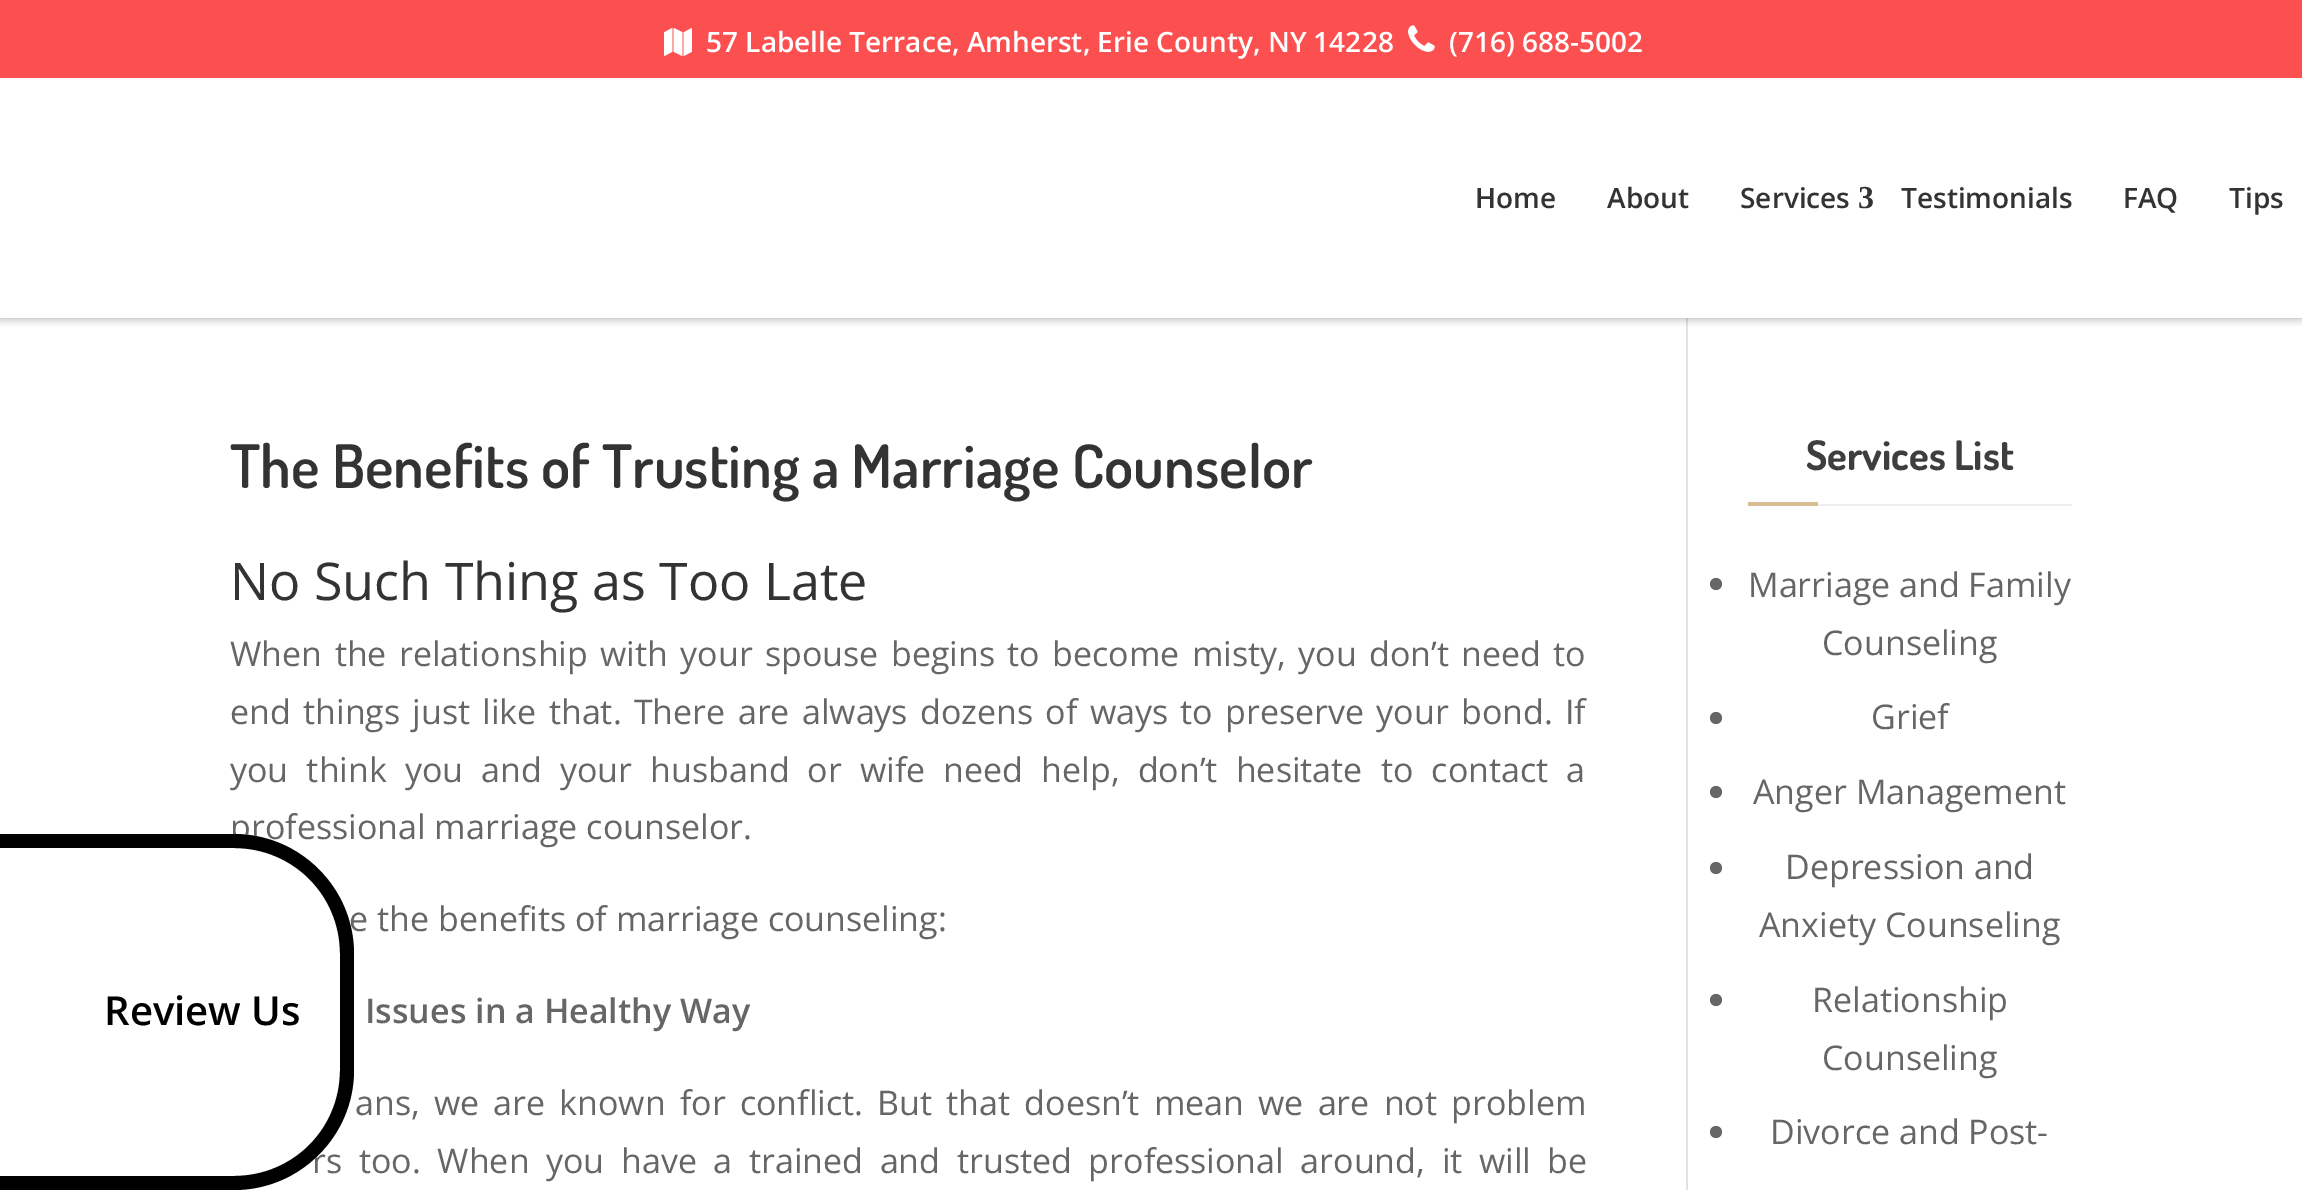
%!PS
<< /PageSize [2302 1190] /PageUsesTransparency true >> setpagedevice
/rgb { 3 { 255 div 3 1 roll } repeat setrgbcolor } def
/font { [ exch dup neg 0 0 3 -1 roll 0 0 ] selectfont } def
/alpha { dup .setfillconstantalpha .setstrokeconstantalpha } def
/circle { newpath 0 360 arc closepath } def
/roundrect { 5 dict begin { /r /h /w /y /x } { exch def } forall
  x r add y moveto x w add y 2 copy h add r arct x w add y h add x 1 index r arct
  x y h add x y r arct x y 2 copy exch w add exch r arct closepath end } def
/shadow { 12 dict begin { /a /b /q /h /w /y /x } { exch def } forall gsave /was 0 def
  9 -2 -9 { dup b mul 4 div /e exch def 1 sub .425 mul 2.718 exch exp 1 add a .99 .min exch div /now exch def
    1 1 now sub 1 was sub div sub alpha /was now def
    w h .min e 2 mul add 0 gt { x e sub y e sub w e 2 mul add h e 2 mul add
      q e add b .6 mul add w h .min 2 div e add .min 0 .max roundrect fill } if } for grestore end } def
/picture { 5 dict begin { /h /w /y /x /name } { exch def } forall
  gsave x y translate w h scale
  w h 8 [w 0 0 h 0 0] name (r) file false 3 colorimage grestore end } def
0 .pushpdf14devicefilter
0 1190 translate 1 -1 scale
4 setmiterlimit
255 255 255 rgb
0 0 2302 1190 rectfill
226 226 226 rgb
1686 318 2 872 rectfill
gsave
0 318 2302 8 rectclip
0 0 0 rgb
0 0 2302 318 0 5 0.35 shadow
grestore
252 79 79 rgb
0 0 2302 78 rectfill
(img/1.rgb) 664 28 28 28 picture
(img/2.rgb) 1408 25 27 27 picture
238 238 238 rgb
1818 504 254 2 rectfill
217 190 147 rgb
1748 502 70 4 rectfill
102 102 102 rgb
1716 584 6 circle fill
1716 718 6 circle fill
1716 792 6 circle fill
1716 868 6 circle fill
1716 1000 6 circle fill
1716 1132 6 circle fill
/OpenSans-SemiBold 28 font
255 255 255 rgb
706 52 moveto (57 Labelle Terrace, Amherst, Erie County, NY 14228) show
1449 52 moveto (\(716\) 688-5002) show
51 51 51 rgb
[
  [(Home) 1475 208]
  [(About) 1607 208]
  [(Services) 1740 208]
] { aload pop moveto show } forall
/LiberationSerif-Bold 32 font
1858 208 moveto (3) show
/OpenSans-SemiBold 28 font
[
  [(Testimonials) 1901 208]
  [(FAQ) 2123 208]
  [(Tips) 2229 208]
] { aload pop moveto show } forall
/Dosis-SemiBold 60 font
230 488 moveto (The Benefits of Trusting a Marriage Counselor) show
/OpenSans-Regular 52 font
230 600 moveto (No Such Thing as Too Late) show
/OpenSans-Regular 34 font
102 102 102 rgb
230 666 moveto 3.5 0 32 (When the relationship with your spouse begins to become misty, you don’t need to) widthshow
230 724 moveto 3.4 0 32 (end things just like that. There are always dozens of ways to preserve your bond. If) widthshow
230 782 moveto 9.25 0 32 (you think you and your husband or wife need help, don’t hesitate to contact a) widthshow
230 839 moveto (professional marriage counselor.) show
349 931 moveto (e the benefits of marriage counseling:) show
/OpenSans-SemiBold 34 font
365 1023 moveto (Issues in a Healthy Way) show
/OpenSans-Regular 34 font
355 1115 moveto 5.25 0 32 (ans, we are known for conflict. But that doesn’t mean we are not problem) widthshow
312 1173 moveto 7.75 0 32 (rs too. When you have a trained and trusted professional around, it will be) widthshow
255 255 255 rgb
0 834 moveto 234 834 lineto 300.5 834 354 887.5 354 954 curveto 354 1070 lineto 354 1136.5 300.5 1190 234 1190 curveto 0 1190 lineto closepath fill
0 0 0 rgb
0 834 moveto 234 834 lineto 300 834 354 888 354 954 curveto 354 1070 lineto 354 1136 300 1190 234 1190 curveto 0 1190 lineto closepath 0 848 moveto 234 848 lineto 293 848 340 895 340 954 curveto 340 1070 lineto 340 1129 293 1176 234 1176 curveto 0 1176 lineto closepath eofill
/OpenSans-SemiBold 40 font
104 1025 moveto (Review Us) show
/Dosis-Bold 40.75 font
61 62 62 rgb
1806 470 moveto (Services List) show
/OpenSans-Regular 34 font
102 102 102 rgb
[
  [(Marriage and Family) 1748 597]
  [(Counseling) 1822 655]
  [(Grief) 1871 729]
  [(Anger Management) 1753 804]
  [(Depression and) 1785 879]
  [(Anxiety Counseling) 1759 937]
  [(Relationship) 1812 1012]
  [(Counseling) 1822 1070]
  [(Divorce and Post-) 1770 1144]
] { aload pop moveto show } forall
.poppdf14devicefilter showpage
